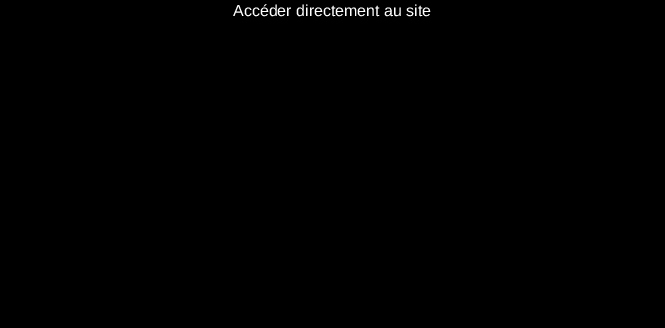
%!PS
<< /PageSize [665 328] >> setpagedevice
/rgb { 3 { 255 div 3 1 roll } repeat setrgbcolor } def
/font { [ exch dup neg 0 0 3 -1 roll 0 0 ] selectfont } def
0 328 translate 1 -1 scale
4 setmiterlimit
0 0 0 rgb
0 0 665 328 rectfill
/LiberationSans-Regular 16 font
255 255 255 rgb
233 16 moveto (Accéder directement au site) show
showpage
